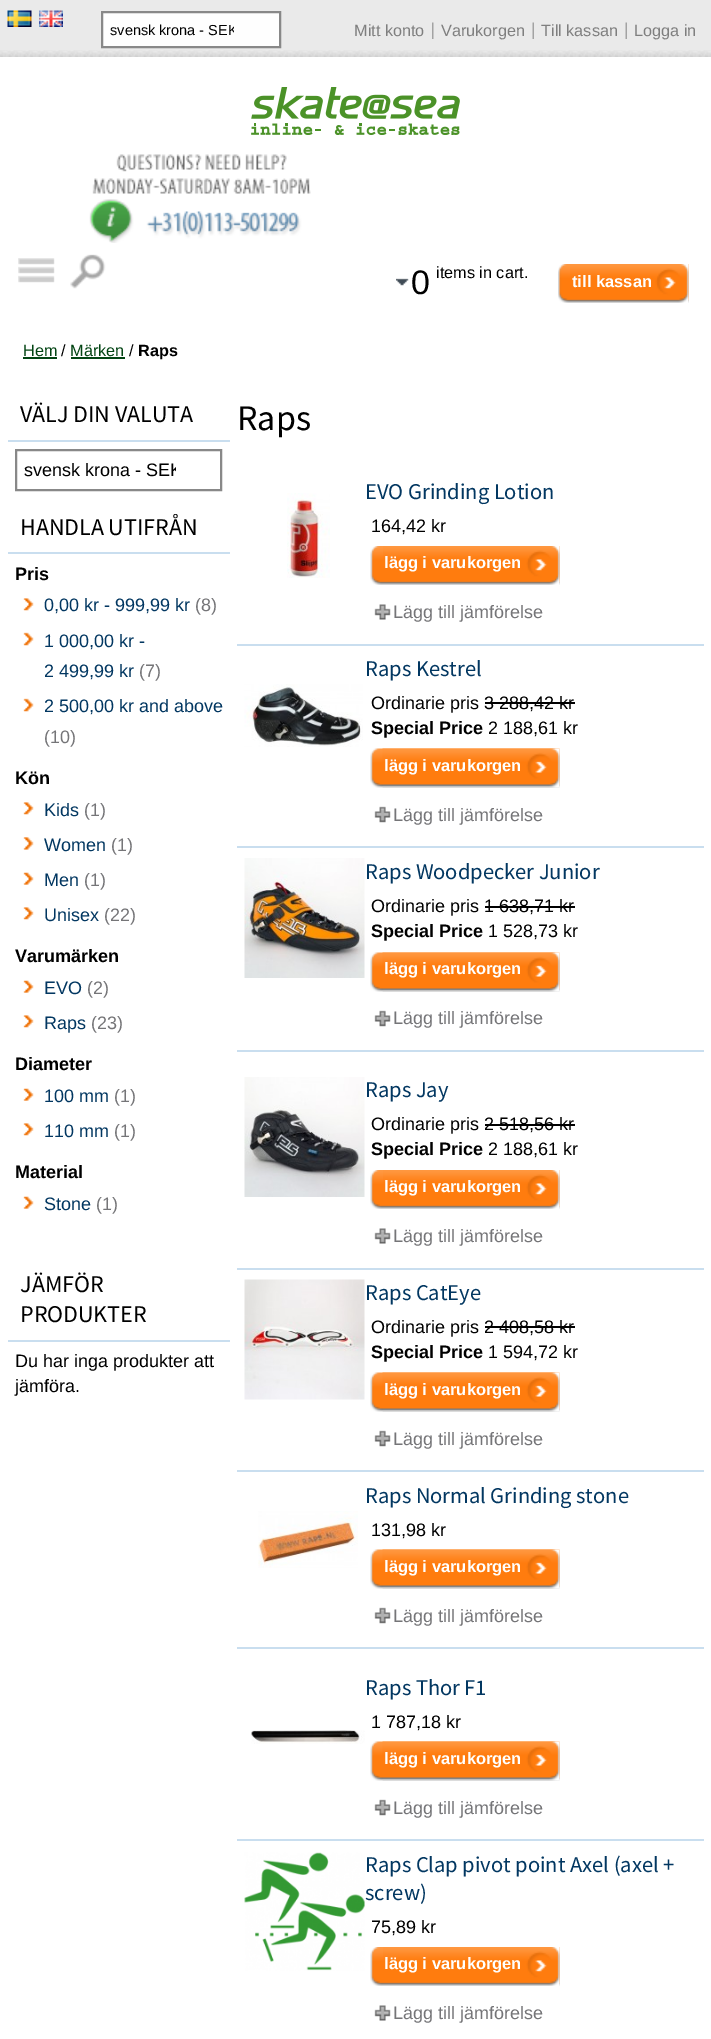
%!PS
<< /PageSize [711 2039] >> setpagedevice
/rgb { 3 { 255 div 3 1 roll } repeat setrgbcolor } def
/font { [ exch dup neg 0 0 3 -1 roll 0 0 ] selectfont } def
/picture { 5 dict begin { /h /w /y /x /name } { exch def } forall
  gsave x y translate w h scale
  w h 8 [w 0 0 h 0 0] name (r) file false 3 colorimage grestore end } def
0 2039 translate 1 -1 scale
4 setmiterlimit
255 255 255 rgb
0 0 711 2039 rectfill
234 234 234 rgb
0 0 711 50 rectfill
(img/1.rgb) 0 50 711 7 picture
(img/2.rgb) 7 10 25 17 picture
(img/3.rgb) 39 10 24 17 picture
254 254 254 rgb
102 12 moveto 280 12 lineto 280 47 lineto 102 47 lineto closepath gsave fill grestore
136 136 136 rgb
2 setlinewidth
stroke
(img/4.rgb) 432 22 2 17 picture
(img/5.rgb) 532 22 2 17 picture
(img/5.rgb) 625 22 2 17 picture
(img/6.rgb) 251 87 209 48 picture
(img/7.rgb) 89 154 222 89 picture
(img/8.rgb) 18 258 37 25 picture
(img/9.rgb) 70 254 36 35 picture
(img/10.rgb) 396 278 13 8 picture
(img/11.rgb) 558 264 131 39 picture
(img/12.rgb) 570 264 119 39 picture
[
  [23 357 34 2 2 68 19]
  [71 357 54 2 2 68 19]
  [8 440 222 2 201 222 239]
] { aload pop rgb rectfill } forall
136 136 136 rgb
16 450 205 40 rectstroke
201 222 239 rgb
8 552 222 2 rectfill
(img/13.rgb) 23 598 11 13 picture
(img/14.rgb) 23 632 11 14 picture
(img/14.rgb) 23 698 11 14 picture
(img/13.rgb) 23 802 11 13 picture
(img/15.rgb) 23 837 11 13 picture
(img/16.rgb) 23 872 11 13 picture
(img/13.rgb) 23 907 11 13 picture
(img/16.rgb) 23 980 11 13 picture
(img/13.rgb) 23 1015 11 13 picture
(img/16.rgb) 23 1088 11 13 picture
(img/13.rgb) 23 1123 11 13 picture
(img/16.rgb) 23 1196 11 13 picture
8 1340 222 2 rectfill
237 644 467 2 rectfill
(img/17.rgb) 287 493 43 85 picture
(img/18.rgb) 370 546 190 39 picture
(img/19.rgb) 383 546 177 39 picture
(img/20.rgb) 374 604 17 16 picture
237 846 467 2 rectfill
(img/21.rgb) 244 684 119 63 picture
0 0 0 rgb
485 702 90 2 rectfill
(img/22.rgb) 370 748 190 40 picture
(img/23.rgb) 382 748 178 40 picture
(img/24.rgb) 374 806 17 17 picture
201 222 239 rgb
237 1050 467 2 rectfill
(img/25.rgb) 244 858 121 120 picture
0 0 0 rgb
485 906 90 2 rectfill
(img/22.rgb) 370 952 190 40 picture
(img/23.rgb) 382 952 178 40 picture
(img/24.rgb) 374 1010 17 17 picture
201 222 239 rgb
237 1268 467 2 rectfill
(img/26.rgb) 244 1077 121 120 picture
0 0 0 rgb
485 1124 90 2 rectfill
(img/18.rgb) 370 1170 190 39 picture
(img/19.rgb) 383 1170 177 39 picture
(img/20.rgb) 374 1228 17 16 picture
201 222 239 rgb
237 1470 467 2 rectfill
(img/27.rgb) 244 1279 121 121 picture
0 0 0 rgb
485 1326 90 2 rectfill
(img/22.rgb) 370 1372 190 40 picture
(img/23.rgb) 382 1372 178 40 picture
(img/24.rgb) 374 1430 17 17 picture
201 222 239 rgb
237 1647 467 2 rectfill
(img/28.rgb) 258 1511 100 57 picture
(img/22.rgb) 370 1549 190 40 picture
(img/23.rgb) 382 1549 178 40 picture
(img/24.rgb) 374 1607 17 17 picture
237 1839 467 2 rectfill
(img/29.rgb) 251 1730 114 14 picture
(img/22.rgb) 370 1741 190 40 picture
(img/23.rgb) 382 1741 178 40 picture
(img/24.rgb) 374 1799 17 17 picture
(img/30.rgb) 244 1852 121 119 picture
(img/18.rgb) 370 1947 190 39 picture
(img/19.rgb) 383 1947 177 39 picture
(img/20.rgb) 374 2005 17 16 picture
gsave
110 21 124 17 rectclip
/LiberationSans-Regular 14.5 font
0 0 0 rgb
110 35 moveto (svensk krona - SEK) show
grestore
/LiberationSans-Regular 16.25 font
127 127 127 rgb
[
  [(Mitt konto) 354 36]
  [(Varukorgen) 441 36]
  [(Till kassan) 541 36]
  [(Logga in) 634 36]
] { aload pop moveto show } forall
/LiberationSans-Regular 34 font
0 0 0 rgb
411 294 moveto (0) show
/LiberationSans-Regular 16.25 font
436 278 moveto (items in cart.) show
/LiberationSans-Bold 16.5 font
255 255 255 rgb
572 287 moveto (till kassan) show
/LiberationSans-Regular 16.25 font
2 68 19 rgb
23 356 moveto (Hem) show
0 0 0 rgb
61 356 moveto (/) show
2 68 19 rgb
70 356 moveto (Märken) show
0 0 0 rgb
129 356 moveto (/) show
/LiberationSans-Bold 16.25 font
138 356 moveto (Raps) show
/SourceSansPro-Regular 24 font
20 422 moveto (VÄLJ DIN VALUTA) show
gsave
24 459 152 21 rectclip
/LiberationSans-Regular 18 font
24 476 moveto (svensk krona - SEK) show
grestore
20 535 moveto (HANDLA UTIFRÅN) show
/LiberationSans-Bold 18 font
15 580 moveto (Pris) show
/LiberationSans-Regular 18 font
2 55 97 rgb
44 611 moveto (0,00 kr - 999,99 kr) show
117 117 120 rgb
195 611 moveto (\(8\)) show
2 55 97 rgb
44 647 moveto (1 000,00 kr -) show
44 677 moveto (2 499,99 kr) show
117 117 120 rgb
139 677 moveto (\(7\)) show
2 55 97 rgb
44 712 moveto (2 500,00 kr and above) show
117 117 120 rgb
44 743 moveto (\(10\)) show
/LiberationSans-Bold 18 font
0 0 0 rgb
15 784 moveto (Kön) show
/LiberationSans-Regular 18 font
2 55 97 rgb
44 816 moveto (Kids) show
117 117 120 rgb
84 816 moveto (\(1\)) show
2 55 97 rgb
44 851 moveto (Women) show
117 117 120 rgb
111 851 moveto (\(1\)) show
2 55 97 rgb
44 886 moveto (Men) show
117 117 120 rgb
84 886 moveto (\(1\)) show
2 55 97 rgb
44 921 moveto (Unisex) show
117 117 120 rgb
104 921 moveto (\(22\)) show
/LiberationSans-Bold 18 font
0 0 0 rgb
15 962 moveto (Varumärken) show
/LiberationSans-Regular 18 font
2 55 97 rgb
44 994 moveto (EVO) show
117 117 120 rgb
87 994 moveto (\(2\)) show
2 55 97 rgb
44 1029 moveto (Raps) show
117 117 120 rgb
91 1029 moveto (\(23\)) show
/LiberationSans-Bold 18 font
0 0 0 rgb
15 1070 moveto (Diameter) show
/LiberationSans-Regular 18 font
2 55 97 rgb
44 1102 moveto (100 mm) show
117 117 120 rgb
114 1102 moveto (\(1\)) show
2 55 97 rgb
44 1137 moveto (110 mm) show
117 117 120 rgb
114 1137 moveto (\(1\)) show
/LiberationSans-Bold 18 font
0 0 0 rgb
15 1178 moveto (Material) show
/LiberationSans-Regular 18 font
2 55 97 rgb
44 1210 moveto (Stone) show
117 117 120 rgb
96 1210 moveto (\(1\)) show
/SourceSansPro-Regular 24 font
0 0 0 rgb
20 1292 moveto (JÄMFÖR) show
20 1322 moveto (PRODUKTER) show
/LiberationSans-Regular 18 font
15 1367 moveto (Du har inga produkter att) show
15 1392 moveto (jämföra.) show
/SourceSansPro-Regular 36 font
237 430 moveto (Raps) show
/SourceSansPro-Regular 22.5 font
2 55 97 rgb
365 499 moveto (EVO Grinding Lotion) show
/LiberationSans-Regular 18 font
0 0 0 rgb
371 532 moveto (164,42 kr) show
/LiberationSans-Bold 16.5 font
255 255 255 rgb
384 568 moveto (lägg i varukorgen) show
/LiberationSans-Regular 18 font
117 117 120 rgb
393 618 moveto (Lägg till jämförelse) show
/SourceSansPro-Regular 22.5 font
2 55 97 rgb
365 676 moveto (Raps Kestrel) show
/LiberationSans-Regular 18 font
0 0 0 rgb
371 709 moveto (Ordinarie pris 3 288,42 kr) show
/LiberationSans-Bold 18 font
371 734 moveto (Special Price) show
/LiberationSans-Regular 18 font
488 734 moveto (2 188,61 kr) show
/LiberationSans-Bold 16.5 font
255 255 255 rgb
384 771 moveto (lägg i varukorgen) show
/LiberationSans-Regular 18 font
117 117 120 rgb
393 821 moveto (Lägg till jämförelse) show
/SourceSansPro-Regular 22.5 font
2 55 97 rgb
365 879 moveto (Raps Woodpecker Junior) show
/LiberationSans-Regular 18 font
0 0 0 rgb
371 912 moveto (Ordinarie pris 1 638,71 kr) show
/LiberationSans-Bold 18 font
371 937 moveto (Special Price) show
/LiberationSans-Regular 18 font
488 937 moveto (1 528,73 kr) show
/LiberationSans-Bold 16.5 font
255 255 255 rgb
384 974 moveto (lägg i varukorgen) show
/LiberationSans-Regular 18 font
117 117 120 rgb
393 1024 moveto (Lägg till jämförelse) show
/SourceSansPro-Regular 22.5 font
2 55 97 rgb
365 1097 moveto (Raps Jay) show
/LiberationSans-Regular 18 font
0 0 0 rgb
371 1130 moveto (Ordinarie pris 2 518,56 kr) show
/LiberationSans-Bold 18 font
371 1155 moveto (Special Price) show
/LiberationSans-Regular 18 font
488 1155 moveto (2 188,61 kr) show
/LiberationSans-Bold 16.5 font
255 255 255 rgb
384 1192 moveto (lägg i varukorgen) show
/LiberationSans-Regular 18 font
117 117 120 rgb
393 1242 moveto (Lägg till jämförelse) show
/SourceSansPro-Regular 22.5 font
2 55 97 rgb
365 1300 moveto (Raps CatEye) show
/LiberationSans-Regular 18 font
0 0 0 rgb
371 1333 moveto (Ordinarie pris 2 408,58 kr) show
/LiberationSans-Bold 18 font
371 1358 moveto (Special Price) show
/LiberationSans-Regular 18 font
488 1358 moveto (1 594,72 kr) show
/LiberationSans-Bold 16.5 font
255 255 255 rgb
384 1395 moveto (lägg i varukorgen) show
/LiberationSans-Regular 18 font
117 117 120 rgb
393 1445 moveto (Lägg till jämförelse) show
/SourceSansPro-Regular 22.5 font
2 55 97 rgb
365 1503 moveto (Raps Normal Grinding stone) show
/LiberationSans-Regular 18 font
0 0 0 rgb
371 1536 moveto (131,98 kr) show
/LiberationSans-Bold 16.5 font
255 255 255 rgb
384 1572 moveto (lägg i varukorgen) show
/LiberationSans-Regular 18 font
117 117 120 rgb
393 1622 moveto (Lägg till jämförelse) show
/SourceSansPro-Regular 22.5 font
2 55 97 rgb
365 1695 moveto (Raps Thor F1) show
/LiberationSans-Regular 18 font
0 0 0 rgb
371 1728 moveto (1 787,18 kr) show
/LiberationSans-Bold 16.5 font
255 255 255 rgb
384 1764 moveto (lägg i varukorgen) show
/LiberationSans-Regular 18 font
117 117 120 rgb
393 1814 moveto (Lägg till jämförelse) show
/SourceSansPro-Regular 22.5 font
2 55 97 rgb
365 1872 moveto (Raps Clap pivot point Axel \(axel +) show
365 1900 moveto (screw\)) show
/LiberationSans-Regular 18 font
0 0 0 rgb
371 1933 moveto (75,89 kr) show
/LiberationSans-Bold 16.5 font
255 255 255 rgb
384 1969 moveto (lägg i varukorgen) show
/LiberationSans-Regular 18 font
117 117 120 rgb
393 2019 moveto (Lägg till jämförelse) show
showpage
